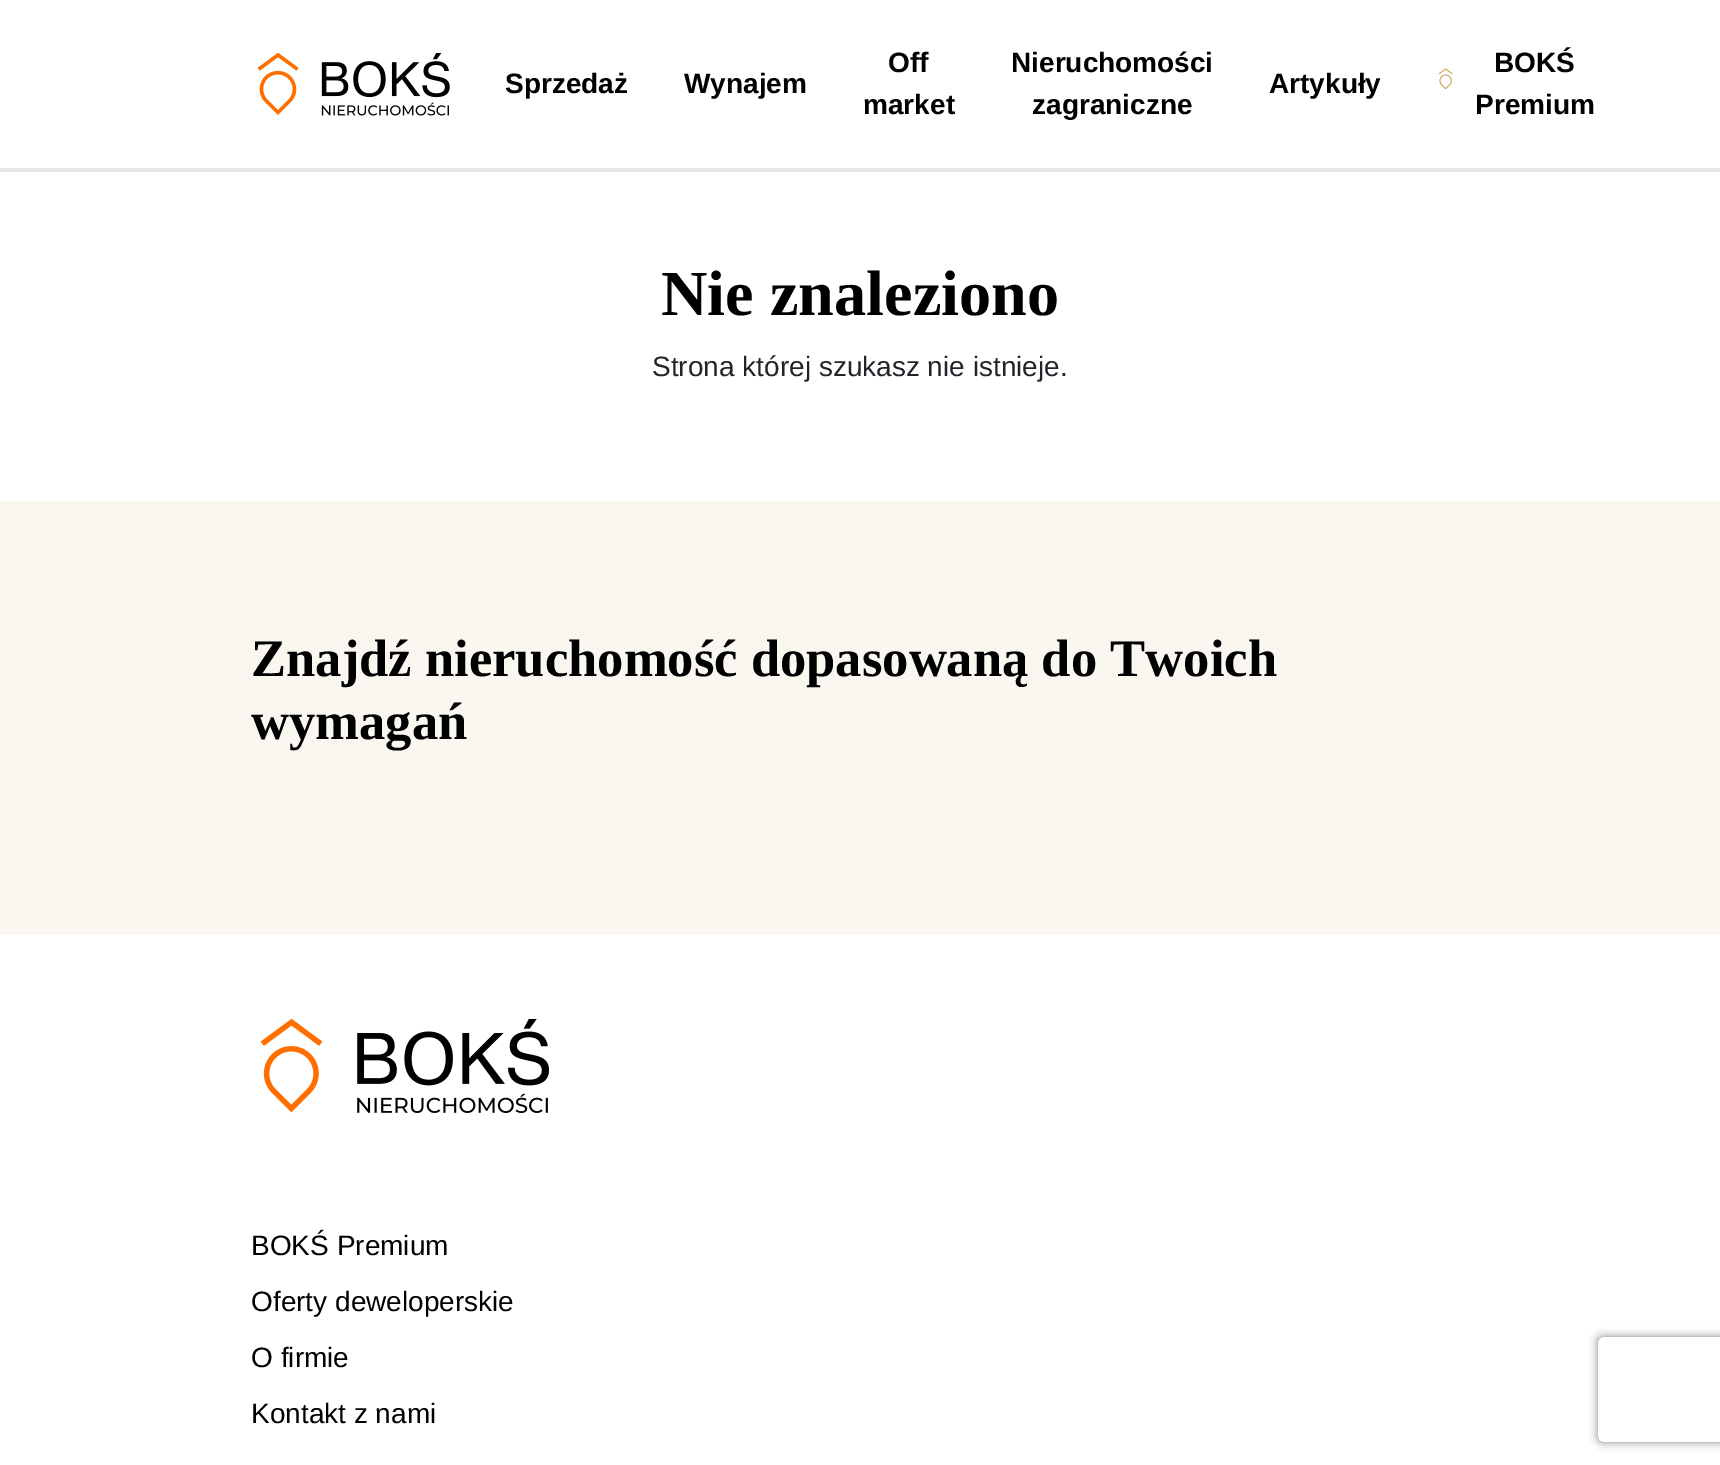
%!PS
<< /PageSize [1720 1465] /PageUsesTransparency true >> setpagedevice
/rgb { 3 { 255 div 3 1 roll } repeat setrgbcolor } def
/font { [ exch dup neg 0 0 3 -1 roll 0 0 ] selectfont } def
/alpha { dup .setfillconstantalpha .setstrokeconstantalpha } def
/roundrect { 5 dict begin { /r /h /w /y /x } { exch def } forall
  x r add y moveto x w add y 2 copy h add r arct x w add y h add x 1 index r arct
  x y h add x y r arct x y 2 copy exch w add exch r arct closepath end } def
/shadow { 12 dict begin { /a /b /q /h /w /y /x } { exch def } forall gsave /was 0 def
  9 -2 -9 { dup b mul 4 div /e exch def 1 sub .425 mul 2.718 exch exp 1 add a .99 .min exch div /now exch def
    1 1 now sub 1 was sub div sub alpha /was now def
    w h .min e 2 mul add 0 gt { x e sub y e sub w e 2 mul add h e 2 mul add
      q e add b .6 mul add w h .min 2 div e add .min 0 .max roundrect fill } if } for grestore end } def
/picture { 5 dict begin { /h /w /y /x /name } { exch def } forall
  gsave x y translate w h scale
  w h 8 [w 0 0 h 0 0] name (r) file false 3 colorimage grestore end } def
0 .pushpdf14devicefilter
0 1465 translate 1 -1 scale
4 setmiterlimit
255 255 255 rgb
0 0 1720 1465 rectfill
230 230 231 rgb
0 168 1720 4 rectfill
(img/1.rgb) 257 53 193 63 picture
(img/2.rgb) 1438 68 15 21 picture
250 247 241 rgb
0 501 1720 434 rectfill
(img/3.rgb) 260 1019 290 94 picture
gsave
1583 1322 moveto 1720 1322 lineto 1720 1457 lineto 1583 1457 lineto closepath 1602 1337 moveto 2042 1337 lineto 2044 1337 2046 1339 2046 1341 curveto 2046 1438 lineto 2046 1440 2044 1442 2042 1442 curveto 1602 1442 lineto 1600 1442 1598 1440 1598 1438 curveto 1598 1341 lineto 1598 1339 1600 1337 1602 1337 curveto closepath eoclip newpath
128 128 128 rgb
1598 1337 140 105 4 4.5 1 shadow
grestore
/LiberationSans-Bold 28 font
0 0 0 rgb
[
  [(Sprzedaż) 505 93]
  [(Wynajem) 684 93]
  [(Off) 888 72]
  [(market) 863 114]
  [(Nieruchomości) 1011 72]
  [(zagraniczne) 1032 114]
  [(Artykuły) 1269 93]
  [(BOKŚ) 1494 72]
  [(Premium) 1475 114]
] { aload pop moveto show } forall
/LiberationSerif-Bold 64.25 font
661 315 moveto (Nie znaleziono) show
/LiberationSans-Regular 28 font
33 37 41 rgb
652 376 moveto (Strona której szukasz nie istnieje.) show
/LiberationSerif-Bold 52.6 font
0 0 0 rgb
251 676 moveto (Znajdź nieruchomość dopasowaną do Twoich) show
251 739 moveto (wymagań) show
/LiberationSans-Regular 28 font
[
  [(BOKŚ Premium) 251 1255]
  [(Oferty deweloperskie) 251 1311]
  [(O firmie) 251 1367]
  [(Kontakt z nami) 251 1423]
] { aload pop moveto show } forall
.poppdf14devicefilter showpage
